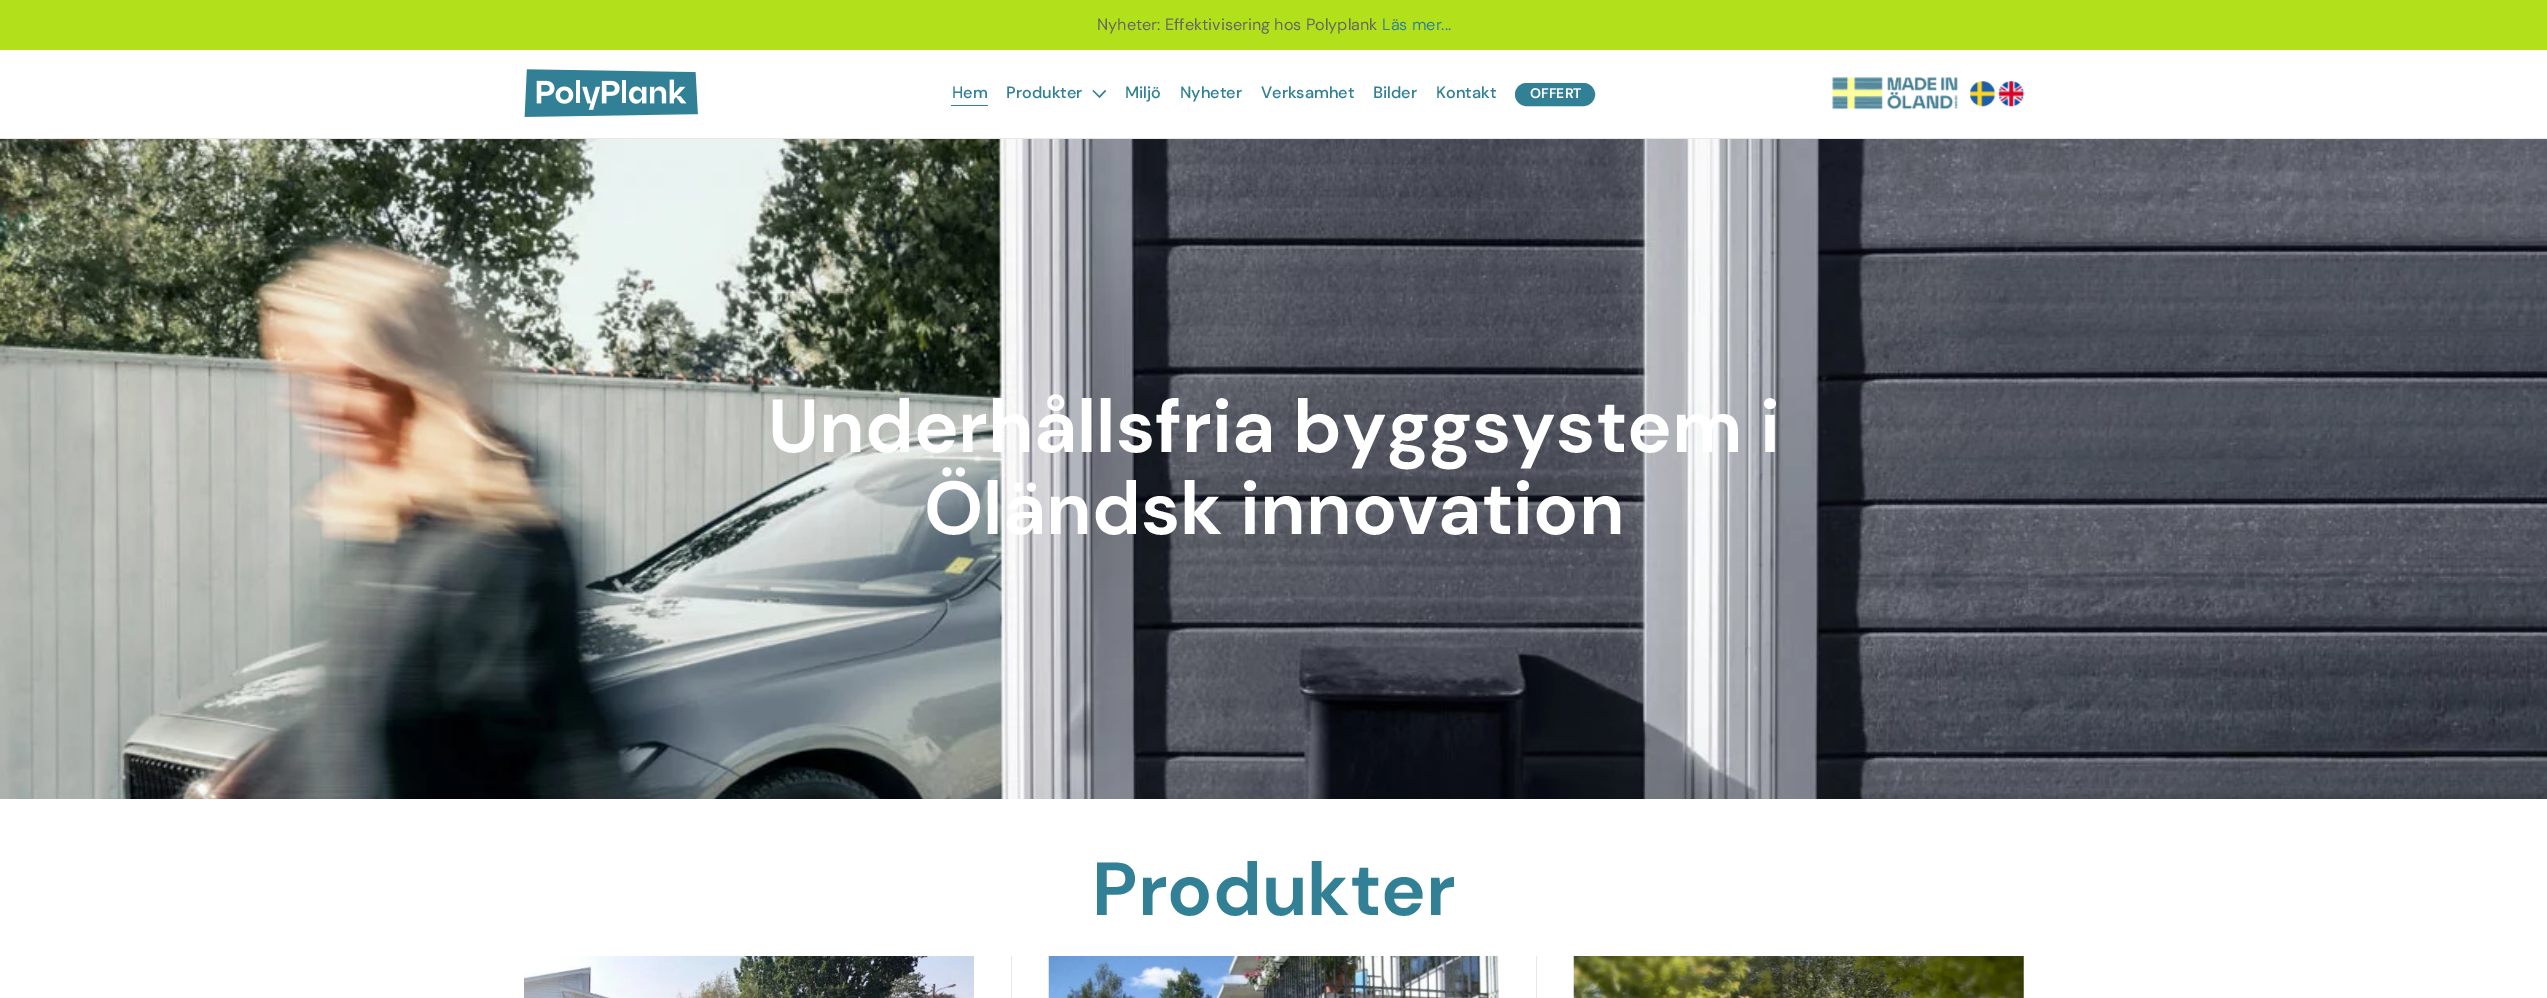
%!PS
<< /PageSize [2547 998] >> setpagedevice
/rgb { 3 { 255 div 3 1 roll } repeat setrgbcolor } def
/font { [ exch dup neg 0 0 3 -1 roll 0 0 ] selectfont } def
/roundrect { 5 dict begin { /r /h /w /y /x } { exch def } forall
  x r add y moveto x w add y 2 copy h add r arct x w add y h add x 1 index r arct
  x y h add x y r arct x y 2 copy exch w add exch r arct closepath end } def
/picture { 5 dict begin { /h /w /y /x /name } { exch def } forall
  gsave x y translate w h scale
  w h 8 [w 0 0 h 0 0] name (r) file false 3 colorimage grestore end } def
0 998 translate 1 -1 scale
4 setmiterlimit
255 255 255 rgb
0 0 2547 998 rectfill
178 225 27 rgb
0 0 2547 50 rectfill
232 232 232 rgb
0 138 2547 1 rectfill
(img/1.rgb) 524 69 174 48 picture
50 128 150 rgb
951 105 37 1 rectfill
1.4 setlinewidth
1093 90.5 moveto 1099.5 97 lineto 1105.5 90.5 lineto stroke
1516.5 84.5 77 20 10 roundrect gsave fill grestore
3 setlinewidth
stroke
(img/2.rgb) 1832 77 127 33 picture
(img/3.rgb) 1969 81 27 26 picture
(img/4.rgb) 1998 81 27 26 picture
(img/5.rgb) 0 139 2547 660 picture
(img/6.rgb) 524 956 450 42 picture
232 232 232 rgb
1011 956 1 42 rectfill
(img/7.rgb) 1048 956 451 42 picture
1536 956 1 42 rectfill
(img/8.rgb) 1573 956 451 42 picture
/DMSans-Regular 16.25 font
102 102 102 rgb
1097 30 moveto (Nyheter: Effektivisering hos Polyplank) show
50 128 150 rgb
1382 30 moveto (Läs mer...) show
/DMSans-Medium 16.25 font
[
  [(Hem) 952 98]
  [(Produkter) 1006 98]
  [(Miljö) 1125 98]
  [(Nyheter) 1180 98]
  [(Verksamhet) 1261 98]
  [(Bilder) 1373 98]
  [(Kontakt) 1436 98]
] { aload pop moveto show } forall
/DMSans-Bold 14 font
255 255 255 rgb
1530 98 moveto (OFFERT) show
/DMSans-Bold 75 font
768 452 moveto (Underhållsfria byggsystem i) show
924 534 moveto (Öländsk innovation) show
50 128 150 rgb
1092 915 moveto (Produkter) show
showpage
